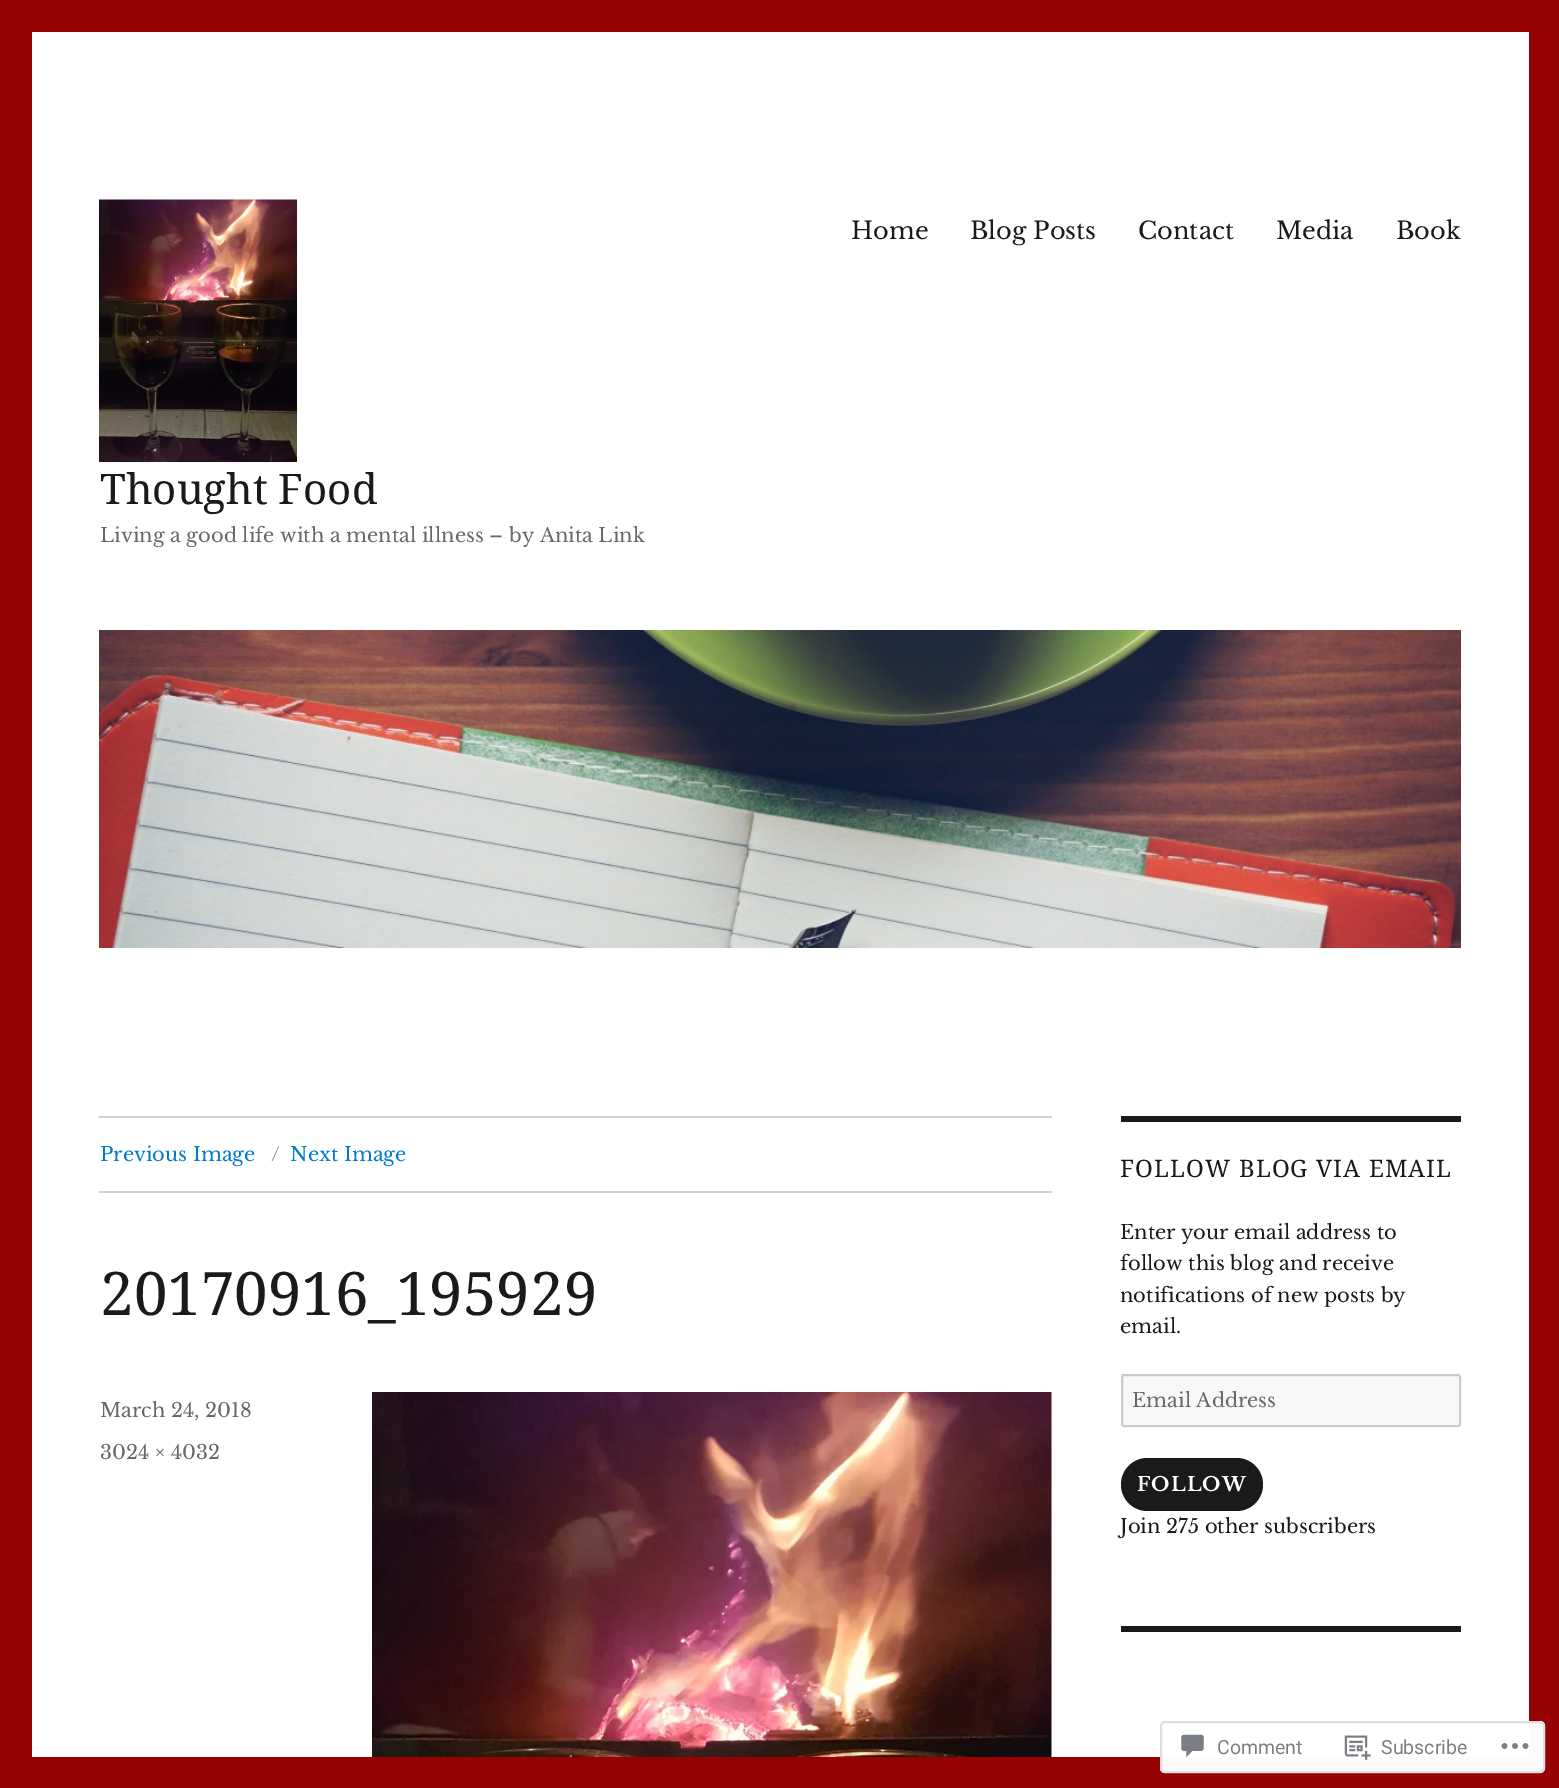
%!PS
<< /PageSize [1559 1788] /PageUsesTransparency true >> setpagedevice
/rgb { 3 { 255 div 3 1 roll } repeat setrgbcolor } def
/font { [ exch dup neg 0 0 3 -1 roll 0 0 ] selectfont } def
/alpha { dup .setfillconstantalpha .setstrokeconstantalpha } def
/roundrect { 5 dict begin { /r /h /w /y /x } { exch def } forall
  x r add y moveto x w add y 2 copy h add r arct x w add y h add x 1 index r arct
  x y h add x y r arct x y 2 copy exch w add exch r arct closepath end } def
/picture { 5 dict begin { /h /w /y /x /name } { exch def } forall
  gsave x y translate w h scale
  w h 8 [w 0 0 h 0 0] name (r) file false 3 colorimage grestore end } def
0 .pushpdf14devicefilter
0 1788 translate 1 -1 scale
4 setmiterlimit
150 2 2 rgb
0 0 1559 1788 rectfill
255 255 255 rgb
32 32 1497 1725 rectfill
(img/1.rgb) 99 199 198 263 picture
(img/2.rgb) 99 630 1362 318 picture
209 209 209 rgb
99 1116 953 2 rectfill
99 1191 953 2 rectfill
(img/3.rgb) 372 1392 680 365 picture
26 26 26 rgb
1121 1116 340 6 rectfill
247 247 247 rgb
1121 1374 340 53 3 roundrect fill
0.2 alpha
26 26 26 rgb
2 setlinewidth
1122 1375 338 51 2 roundrect stroke
1 alpha
1121 1458 142 53 26.5 roundrect fill
1121 1626 340 6 rectfill
0.98 alpha
255 255 255 rgb
1160 1721 385 52 5 roundrect fill
220 220 222 rgb
1161 1722 383 50 4 roundrect stroke
1 alpha
(img/4.rgb) 1181 1734 23 24 picture
(img/5.rgb) 1344 1735 27 25 picture
(img/6.rgb) 1501 1743 28 6 picture
/LibreBaskerville-Regular 24 font
26 26 26 rgb
[
  [(Home) 851 239]
  [(Blog Posts) 970 239]
  [(Contact) 1138 239]
  [(Media) 1276 239]
  [(Book) 1396 239]
] { aload pop moveto show } forall
/NotoSerif-Regular 42 font
100 504 moveto (Thought Food) show
/LibreBaskerville-Regular 19.5 font
104 104 104 rgb
100 542 moveto (Living a good life with a mental illness – by Anita Link) show
0 122 204 rgb
100 1161 moveto (Previous Image) show
149 149 149 rgb
271 1161 moveto (/) show
0 122 204 rgb
290 1161 moveto (Next Image) show
/NotoSerif-Regular 60 font
26 26 26 rgb
100 1315 moveto (20170916_195929) show
/LibreBaskerville-Regular 19.5 font
104 104 104 rgb
100 1417 moveto (March 24, 2018) show
100 1459 moveto (3024 × 4032) show
/NotoSerif-Regular 24 font
26 26 26 rgb
1120 1177 moveto 1.1 0 (FOLLOW BLOG VIA EMAIL) ashow
/LibreBaskerville-Regular 19.5 font
[
  [(Enter your email address to) 1120 1239]
  [(follow this blog and receive) 1120 1270]
  [(notifications of new posts by) 1120 1302]
  [(email.) 1120 1333]
] { aload pop moveto show } forall
104 104 104 rgb
1132 1407 moveto (Email Address) show
/LibreBaskerville-Bold 19.5 font
255 255 255 rgb
1137 1491 moveto 1 0 (FOLLOW) ashow
/LibreBaskerville-Regular 19.5 font
26 26 26 rgb
1120 1533 moveto (Join 275 other subscribers) show
/Roboto-Regular 19.5 font
123 127 133 rgb
1217 1754 moveto (Comment) show
1381 1754 moveto (Subscribe) show
.poppdf14devicefilter showpage
